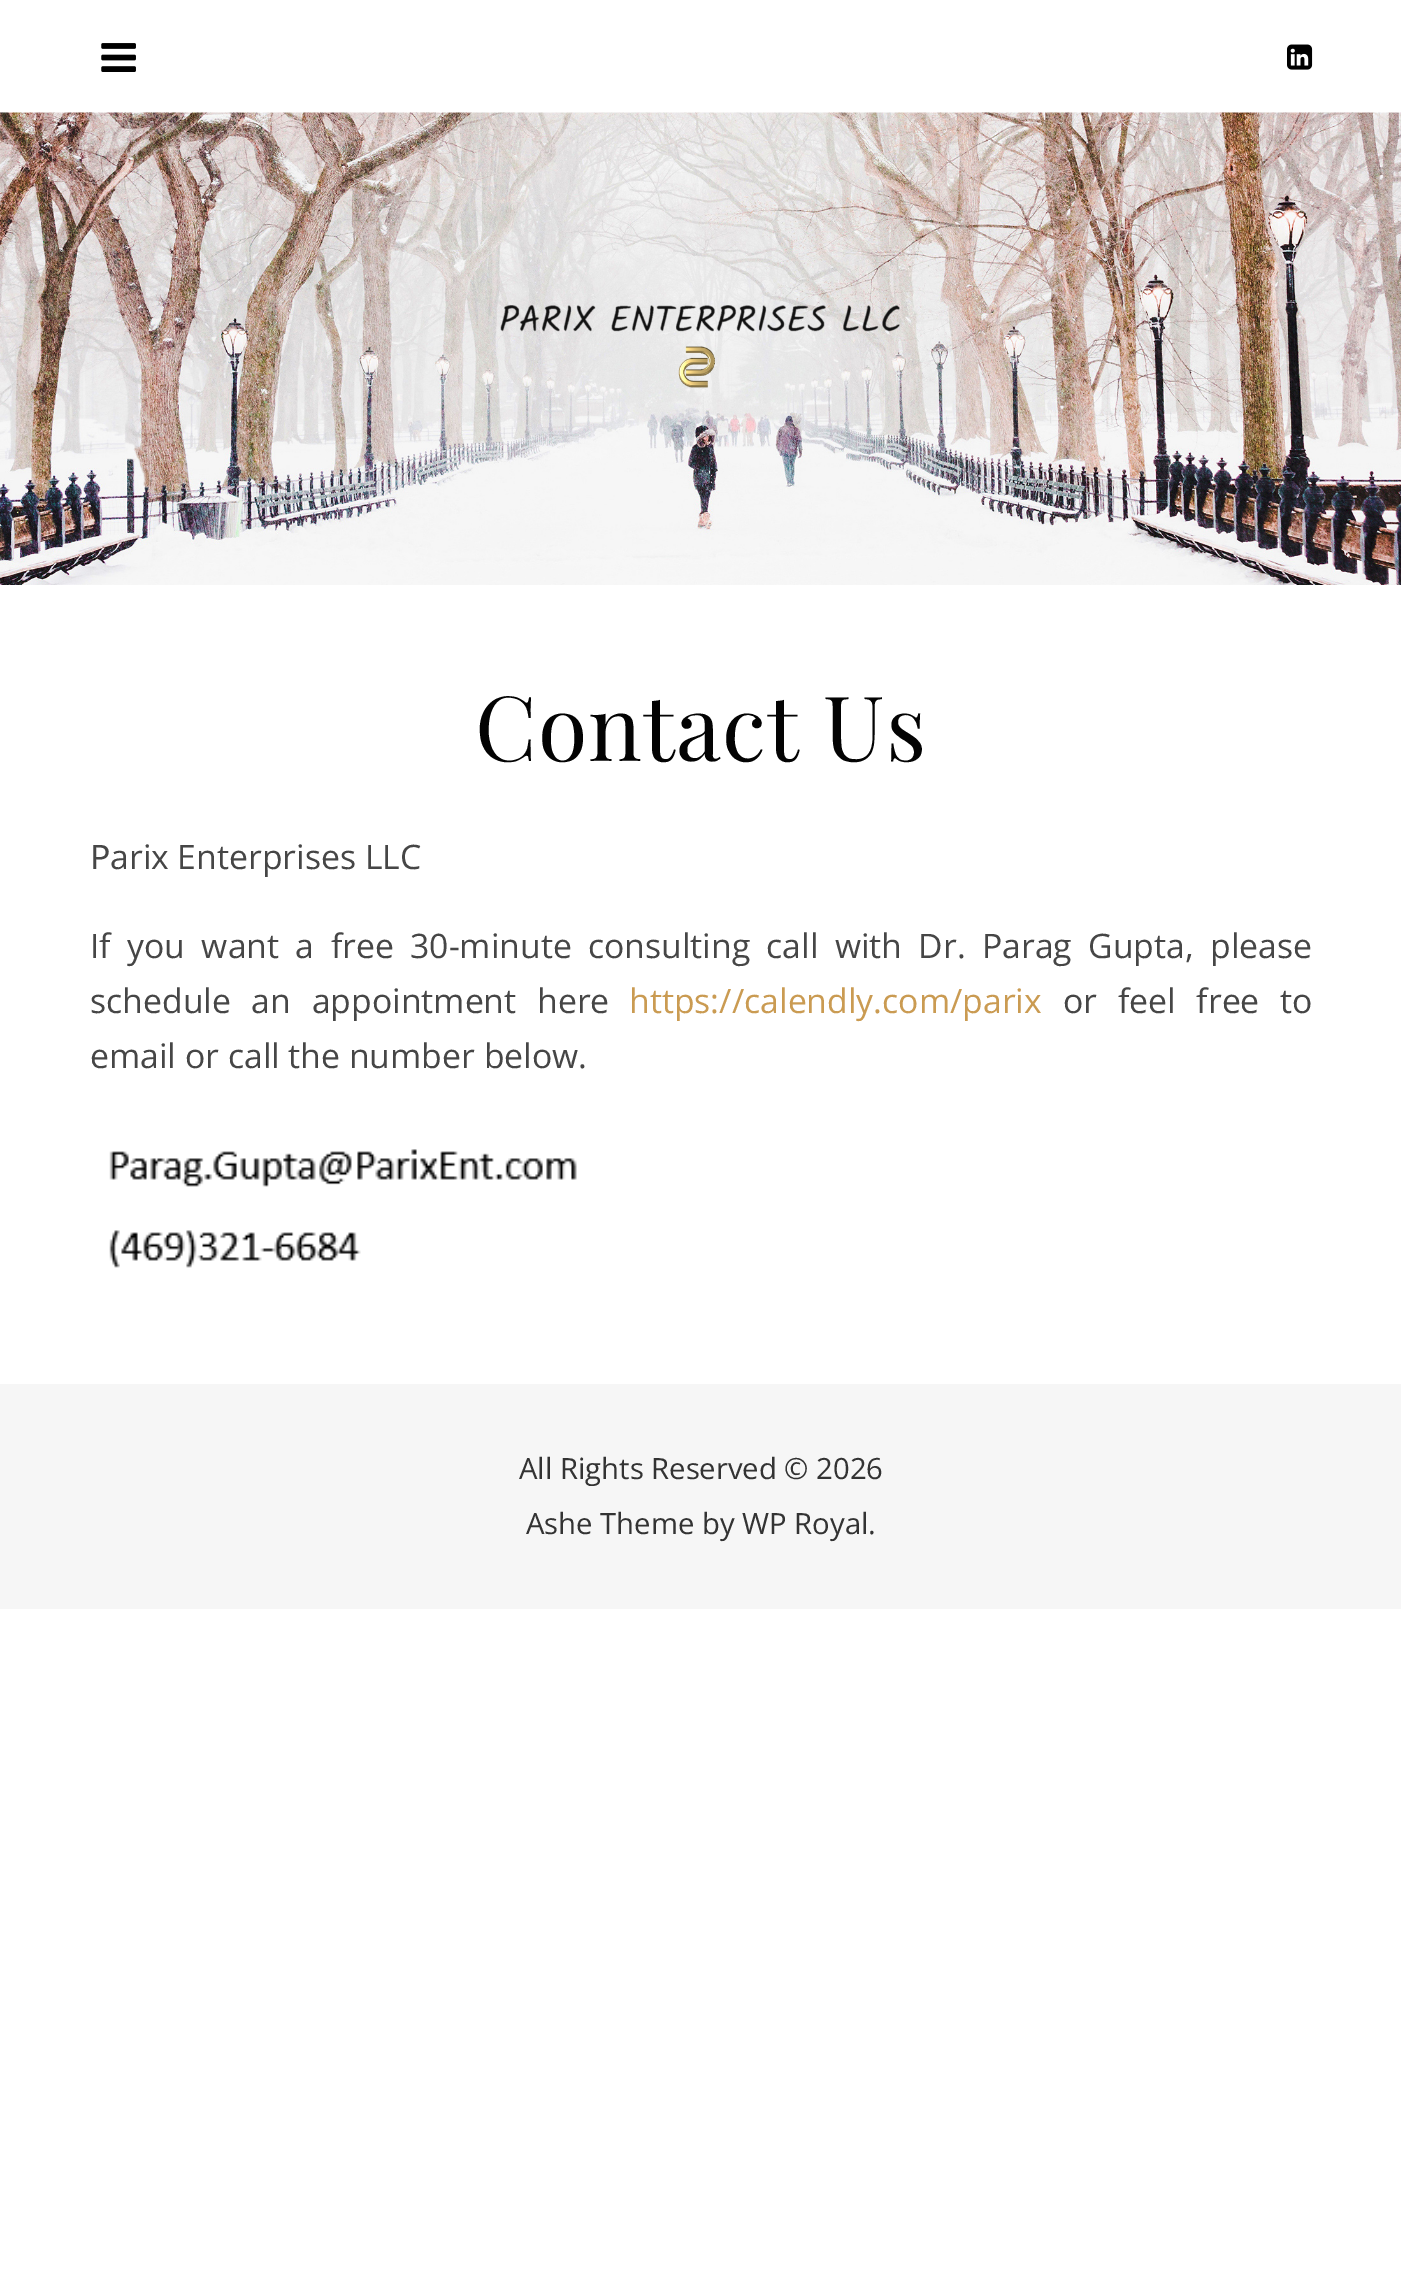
%!PS
<< /PageSize [1401 2290] >> setpagedevice
/rgb { 3 { 255 div 3 1 roll } repeat setrgbcolor } def
/font { [ exch dup neg 0 0 3 -1 roll 0 0 ] selectfont } def
/picture { 5 dict begin { /h /w /y /x /name } { exch def } forall
  gsave x y translate w h scale
  w h 8 [w 0 0 h 0 0] name (r) file false 3 colorimage grestore end } def
0 2290 translate 1 -1 scale
4 setmiterlimit
255 255 255 rgb
0 0 1401 2290 rectfill
(img/1.rgb) 101 43 35 29 picture
(img/2.rgb) 1287 44 26 26 picture
(img/3.rgb) 0 112 1401 473 picture
(img/4.rgb) 500 305 400 83 picture
(img/5.rgb) 109 1149 468 119 picture
246 246 246 rgb
0 1384 1401 225 rectfill
/PlayfairDisplay-Regular 90 font
3 3 3 rgb
475 761 moveto 1.1 0 (Contact Us) ashow
/NotoSans-Regular 33.75 font
70 70 70 rgb
90 869 moveto (P) show
/OpenSans-Regular 33.75 font
110 869 moveto (arix Enterprises LLC) show
90 958 moveto 7.6 0 32 (If you want a free 30-minute consulting call with Dr. Parag Gupta, please) widthshow
90 1013 moveto 12 0 32 (schedule an appointment here) widthshow
202 155 82 rgb
629 1013 moveto (https://calendly.com/parix) show
70 70 70 rgb
1063 1013 moveto 12 0 32 (or feel free to) widthshow
90 1068 moveto (email or call the number below.) show
/OpenSans-Regular 29.25 font
51 51 51 rgb
519 1479 moveto (All Rights Reserved © 2026) show
526 1534 moveto (Ashe Theme by WP Royal.) show
showpage
